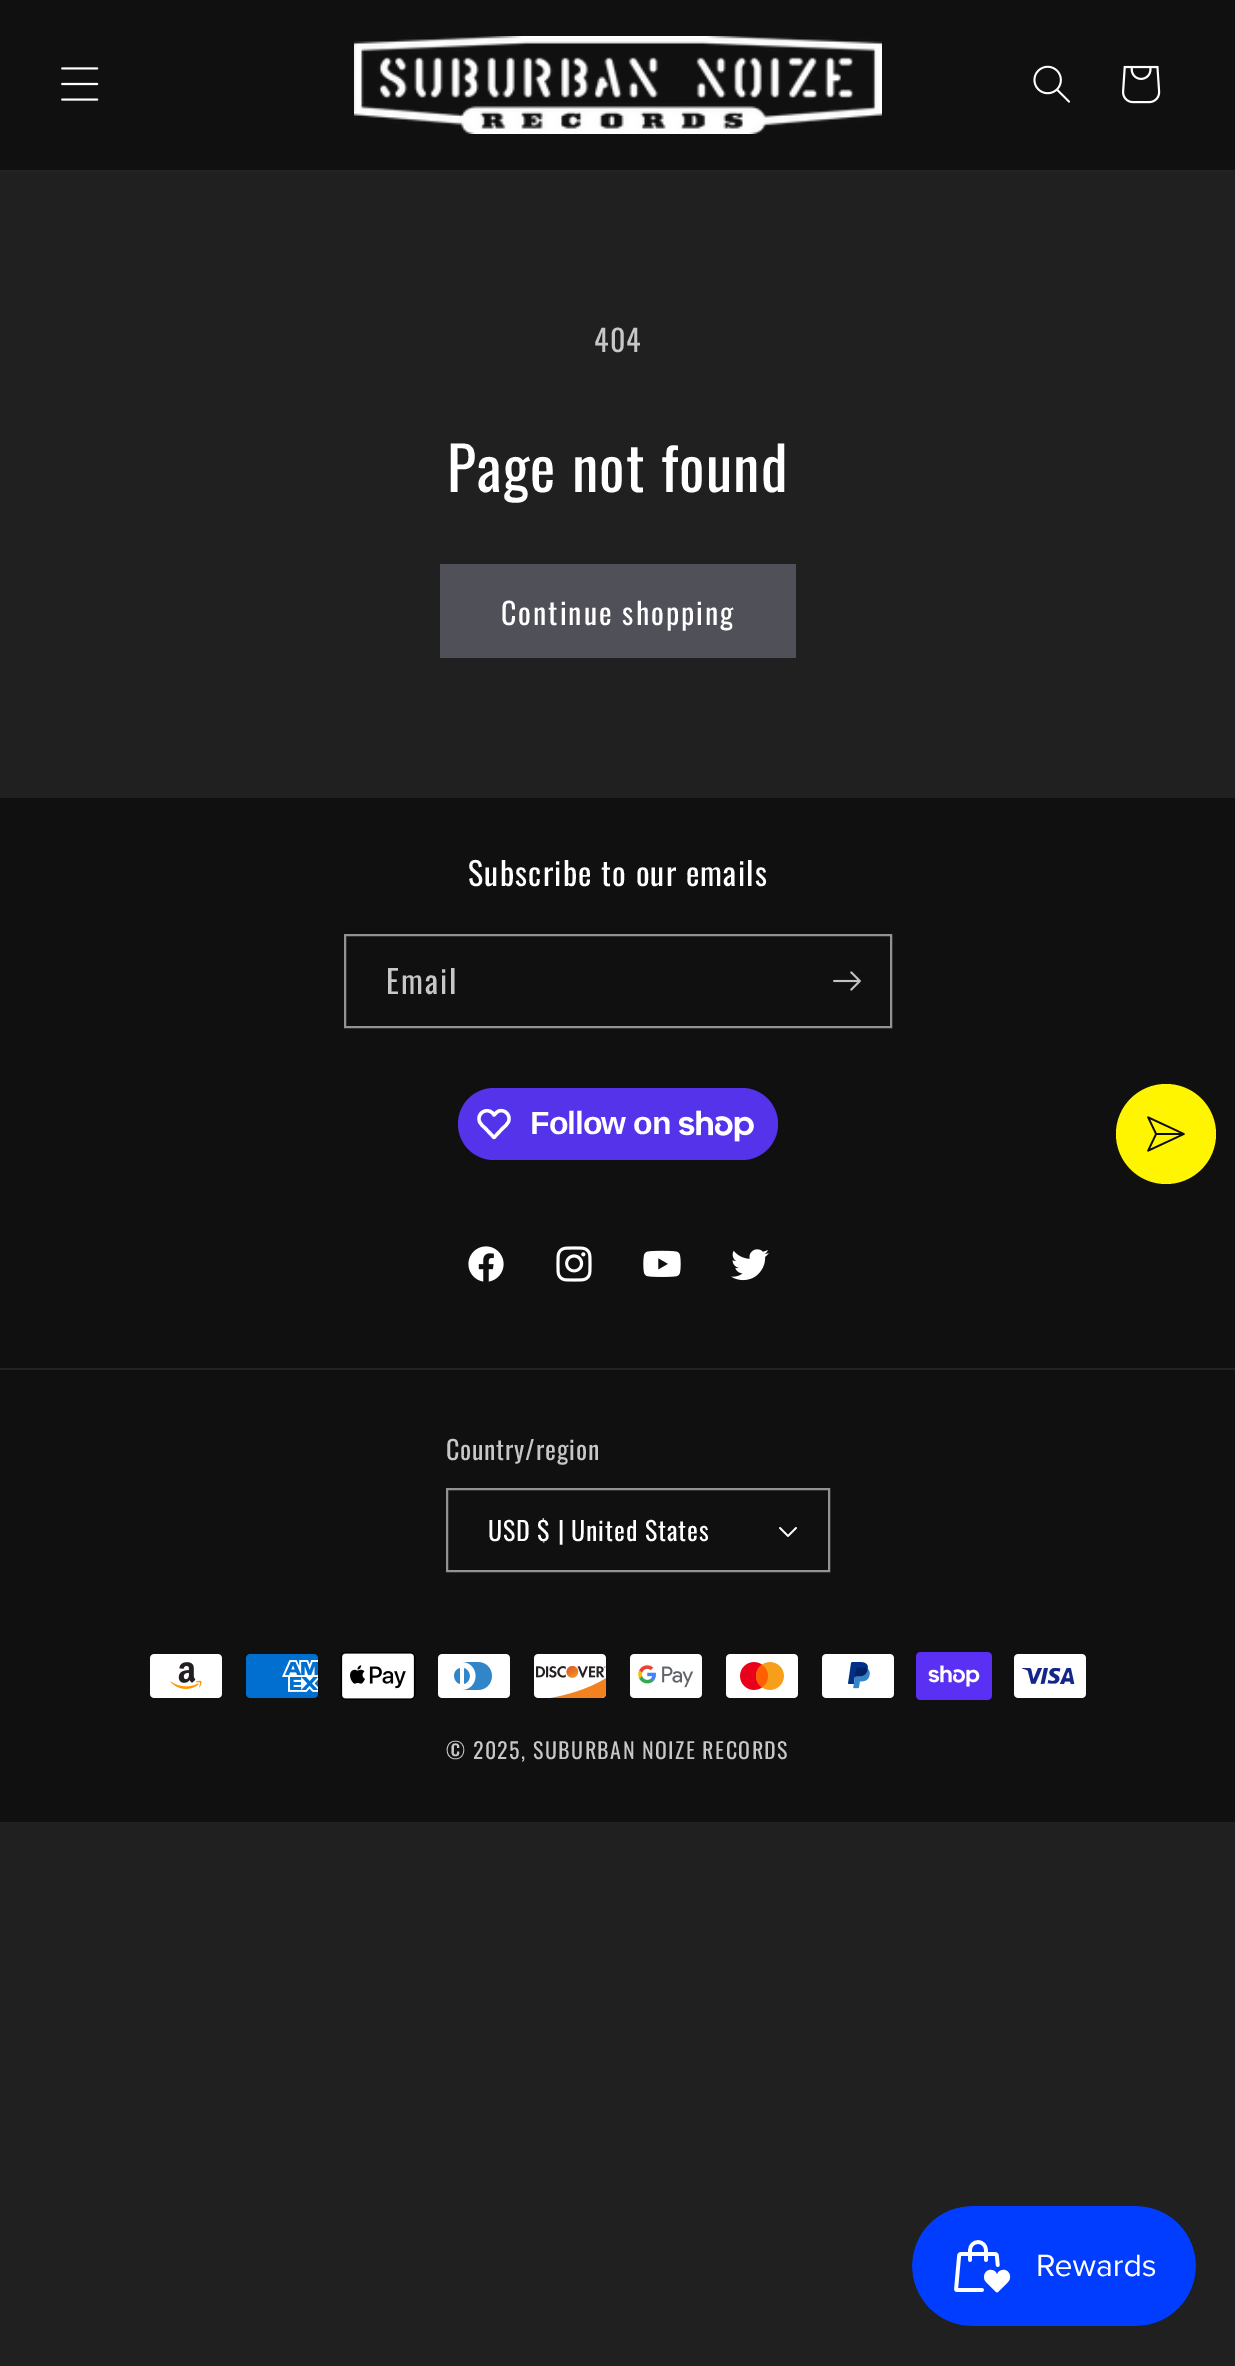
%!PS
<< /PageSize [1235 2366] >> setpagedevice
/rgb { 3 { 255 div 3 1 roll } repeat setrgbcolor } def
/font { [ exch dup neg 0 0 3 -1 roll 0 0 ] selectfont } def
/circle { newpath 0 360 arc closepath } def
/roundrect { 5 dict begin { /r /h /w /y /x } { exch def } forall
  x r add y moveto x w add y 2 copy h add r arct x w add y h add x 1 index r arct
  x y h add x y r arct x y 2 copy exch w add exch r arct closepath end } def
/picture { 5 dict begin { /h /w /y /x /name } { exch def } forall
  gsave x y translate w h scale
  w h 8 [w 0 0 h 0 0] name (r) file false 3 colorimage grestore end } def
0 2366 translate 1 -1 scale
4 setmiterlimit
32 32 32 rgb
0 0 1235 2366 rectfill
16 16 16 rgb
0 0 1235 170 rectfill
35 35 35 rgb
0 170 1235 2 rectfill
(img/1.rgb) 61 67 38 34 picture
(img/2.rgb) 354 36 528 98 picture
(img/3.rgb) 1033 65 37 38 picture
(img/4.rgb) 1122 65 39 39 picture
80 80 89 rgb
440 564 356 94 rectfill
16 16 16 rgb
0 798 1235 1024 rectfill
147 147 147 rgb
2 setlinewidth
345 935 546 92 rectstroke
(img/5.rgb) 833 971 28 20 picture
84 51 235 rgb
458 1088 320 72 36 roundrect fill
255 255 255 rgb
3.3 setlinewidth
1 setlinejoin
492.5 1113 moveto 494 1115 lineto 495.5 1113.5 497 1111.5 499 1111 curveto 505 1109 511 1115.5 508.5 1121.5 curveto 507.5 1124.5 504.5 1126.5 502.5 1128.5 curveto 494 1137.5 lineto 485.5 1128.5 lineto 483.5 1126.5 480.5 1124.5 479.5 1121.5 curveto 476.5 1113.5 486.5 1107 492.5 1113 curveto closepath stroke
(img/6.rgb) 679 1110 75 32 picture
(img/7.rgb) 468 1246 36 36 picture
(img/8.rgb) 556 1246 36 36 picture
(img/9.rgb) 643 1250 38 27 picture
(img/10.rgb) 731 1249 38 32 picture
35 35 35 rgb
0 1368 1235 2 rectfill
(img/11.rgb) 779 1527 18 10 picture
147 147 147 rgb
2 setlinewidth
0 setlinejoin
447 1489 382 82 rectstroke
(img/12.rgb) 150 1654 72 44 picture
(img/13.rgb) 246 1654 72 44 picture
(img/14.rgb) 340 1652 76 48 picture
(img/15.rgb) 438 1654 72 44 picture
(img/16.rgb) 534 1654 73 44 picture
(img/17.rgb) 630 1654 72 44 picture
(img/18.rgb) 726 1654 72 44 picture
(img/19.rgb) 822 1654 72 44 picture
(img/20.rgb) 916 1652 76 48 picture
(img/21.rgb) 1014 1654 72 44 picture
255 245 0 rgb
1166 1134 50 circle fill
(img/22.rgb) 1147 1116 38 36 picture
(img/23.rgb) 912 2206 284 120 picture
/Oswald-Regular 30 font
199 199 199 rgb
594 352 moveto 1.2 0 (404) ashow
/Oswald-Regular 60 font
255 255 255 rgb
447 492 moveto 1.2 0 (Page not found) ashow
/Oswald-Regular 30 font
501 625 moveto 2 0 (Continue shopping) ashow
/Oswald-Regular 32 font
468 886 moveto 1.2 0 (Subscribe to our emails) ashow
199 199 199 rgb
386 994 moveto 2 0 (Email) ashow
/LiberationSans-Bold 32 font
255 255 255 rgb
530 1134 moveto -1 0 (Follow on) ashow
/Oswald-Regular 26 font
199 199 199 rgb
446 1460 moveto 0.8 0 (Country/region) ashow
255 255 255 rgb
488 1541 moveto 0.8 0 (USD $ | United States) ashow
/Oswald-Regular 22 font
199 199 199 rgb
446 1759 moveto 1.4 0 (© 2025, SUBURBAN NOIZE RECORDS) ashow
showpage
